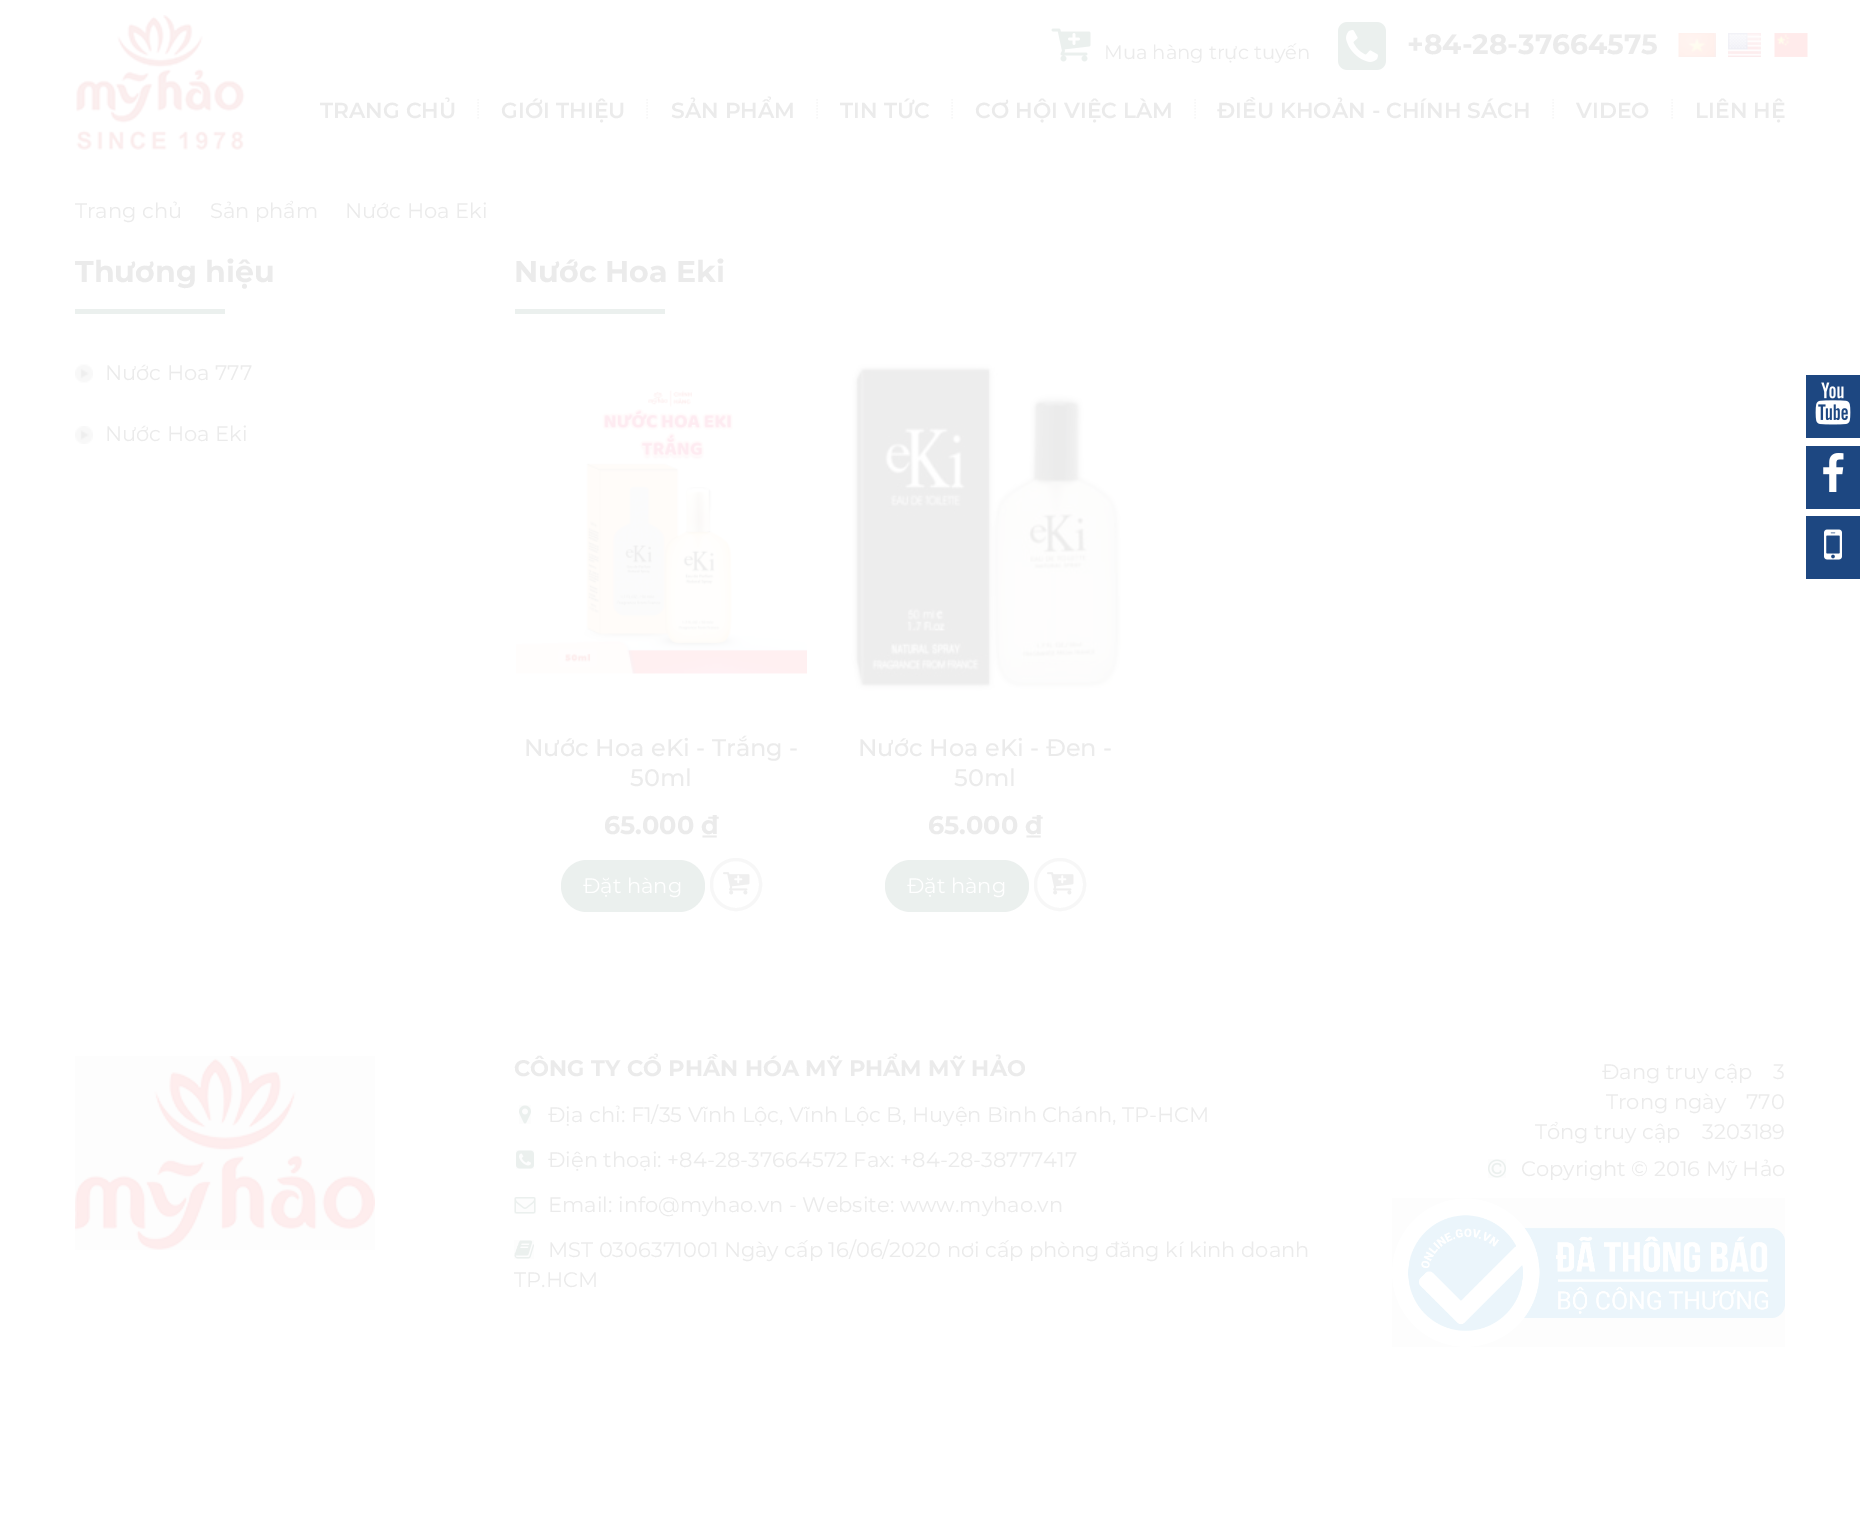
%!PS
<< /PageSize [1860 1517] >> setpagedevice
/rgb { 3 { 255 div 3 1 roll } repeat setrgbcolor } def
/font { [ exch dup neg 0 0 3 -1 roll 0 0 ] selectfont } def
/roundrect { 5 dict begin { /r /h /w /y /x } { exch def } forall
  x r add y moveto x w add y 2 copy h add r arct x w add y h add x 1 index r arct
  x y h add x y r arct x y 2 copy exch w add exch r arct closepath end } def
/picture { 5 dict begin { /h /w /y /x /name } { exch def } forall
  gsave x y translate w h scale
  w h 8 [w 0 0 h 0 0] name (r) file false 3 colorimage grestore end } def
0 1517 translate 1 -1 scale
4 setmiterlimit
255 255 255 rgb
0 0 1860 1517 rectfill
(img/1.rgb) 76 15 169 135 picture
(img/2.rgb) 1051 28 40 34 picture
(img/3.rgb) 1338 22 48 48 picture
(img/4.rgb) 1678 33 38 24 picture
(img/5.rgb) 1728 33 33 24 picture
(img/6.rgb) 1774 33 34 24 picture
247 247 247 rgb
1.5 setlinewidth
[1.5 1.5] 0 setdash
478 99 moveto 478 118.5 lineto stroke
647 99 moveto 647 118.5 lineto stroke
817 99 moveto 817 118.5 lineto stroke
952 99 moveto 952 118.5 lineto stroke
1195 99 moveto 1195 118.5 lineto stroke
1553 99 moveto 1553 118.5 lineto stroke
1672 99 moveto 1672 118.5 lineto stroke
235 240 238 rgb
75 309 150 5 rectfill
(img/7.rgb) 75 364 18 19 picture
(img/8.rgb) 75 426 18 18 picture
515 309 150 5 rectfill
(img/9.rgb) 516 390 291 284 picture
561 860 144 52 26 roundrect fill
247 247 247 rgb
3 setlinewidth
[] 0 setdash
711.5 859.5 49 50 24.5 roundrect stroke
(img/10.rgb) 723 872 27 23 picture
(img/11.rgb) 851 363 273 328 picture
235 240 238 rgb
885 860 144 52 26 roundrect fill
247 247 247 rgb
1035.5 859.5 49 50 24.5 roundrect stroke
(img/10.rgb) 1047 872 27 23 picture
(img/12.rgb) 75 1056 300 194 picture
(img/13.rgb) 519 1105 12 19 picture
(img/14.rgb) 516 1150 18 19 picture
(img/15.rgb) 514 1197 22 17 picture
(img/16.rgb) 514 1240 20 19 picture
(img/17.rgb) 1488 1159 18 19 picture
(img/18.rgb) 1392 1198 393 149 picture
29 71 129 rgb
1806 375 54 63 rectfill
(img/19.rgb) 1815 382 36 43 picture
1806 446 54 63 rectfill
(img/20.rgb) 1823 453 21 39 picture
1806 516 54 63 rectfill
(img/21.rgb) 1824 529 18 31 picture
/Montserrat-Regular 19.5 font
235 235 235 rgb
1104 59 moveto (Mua hàng trực tuyến) show
/Montserrat-Bold 28 font
1407 54 moveto (+84-28-37664575) show
/Montserrat-SemiBold 21.75 font
[
  [(TRANG CHỦ) 320 118]
  [(GIỚI THIỆU) 501 118]
  [(SẢN PHẨM) 671 118]
  [(TIN TỨC) 840 118]
  [(CƠ HỘI VIỆC LÀM) 975 118]
  [(ĐIỀU KHOẢN - CHÍNH SÁCH) 1217 118]
  [(VIDEO) 1576 118]
  [(LIÊN HỆ) 1695 118]
] { aload pop moveto show } forall
/Montserrat-Regular 21 font
[
  [(Trang chủ) 75 218]
  [(Sản phẩm) 210 218]
  [(Nước Hoa Eki) 345 218]
] { aload pop moveto show } forall
/Montserrat-Bold 30 font
75 282 moveto (Thương hiệu) show
/Montserrat-Regular 21 font
105 380 moveto (Nước Hoa 777) show
105 441 moveto (Nước Hoa Eki) show
/Montserrat-Bold 30 font
514 282 moveto (Nước Hoa Eki) show
/Montserrat-Medium 24 font
524 756 moveto (Nước Hoa eKi - Trắng -) show
630 786 moveto (50ml) show
/Montserrat-Bold 25.5 font
604 834 moveto (65.000 ₫) show
/Montserrat-Regular 21 font
255 255 255 rgb
583 893 moveto (Đặt hàng) show
/Montserrat-Medium 24 font
235 235 235 rgb
858 756 moveto (Nước Hoa eKi - Đen -) show
954 786 moveto (50ml) show
/Montserrat-Bold 25.5 font
928 834 moveto (65.000 ₫) show
/Montserrat-Regular 21 font
255 255 255 rgb
907 893 moveto (Đặt hàng) show
/Montserrat-Bold 22.5 font
235 235 235 rgb
514 1076 moveto (CÔNG TY CỔ PHẦN HÓA MỸ PHẨM MỸ HẢO) show
/Montserrat-Regular 21 font
[
  [(Địa chỉ: F1/35 Vĩnh Lộc, Vĩnh Lộc B, Huyện Bình Chánh, TP-HCM) 548 1122]
  [(Điện thoại: +84-28-37664572 Fax: +84-28-38777417) 548 1167]
  [(Email: info@myhao.vn - Website: www.myhao.vn) 548 1212]
  [(MST 0306371001 Ngày cấp 16/06/2020 nơi cấp phòng đăng kí kinh doanh) 548 1257]
  [(TP.HCM) 514 1287]
  [(Đang truy cập) 1602 1079]
  [(3) 1773 1079]
  [(Trong ngày) 1606 1109]
  [(770) 1746 1109]
  [(Tổng truy cập) 1535 1139]
  [(3203189) 1702 1139]
  [(Copyright © 2016 Mỹ Hảo) 1521 1176]
] { aload pop moveto show } forall
showpage
